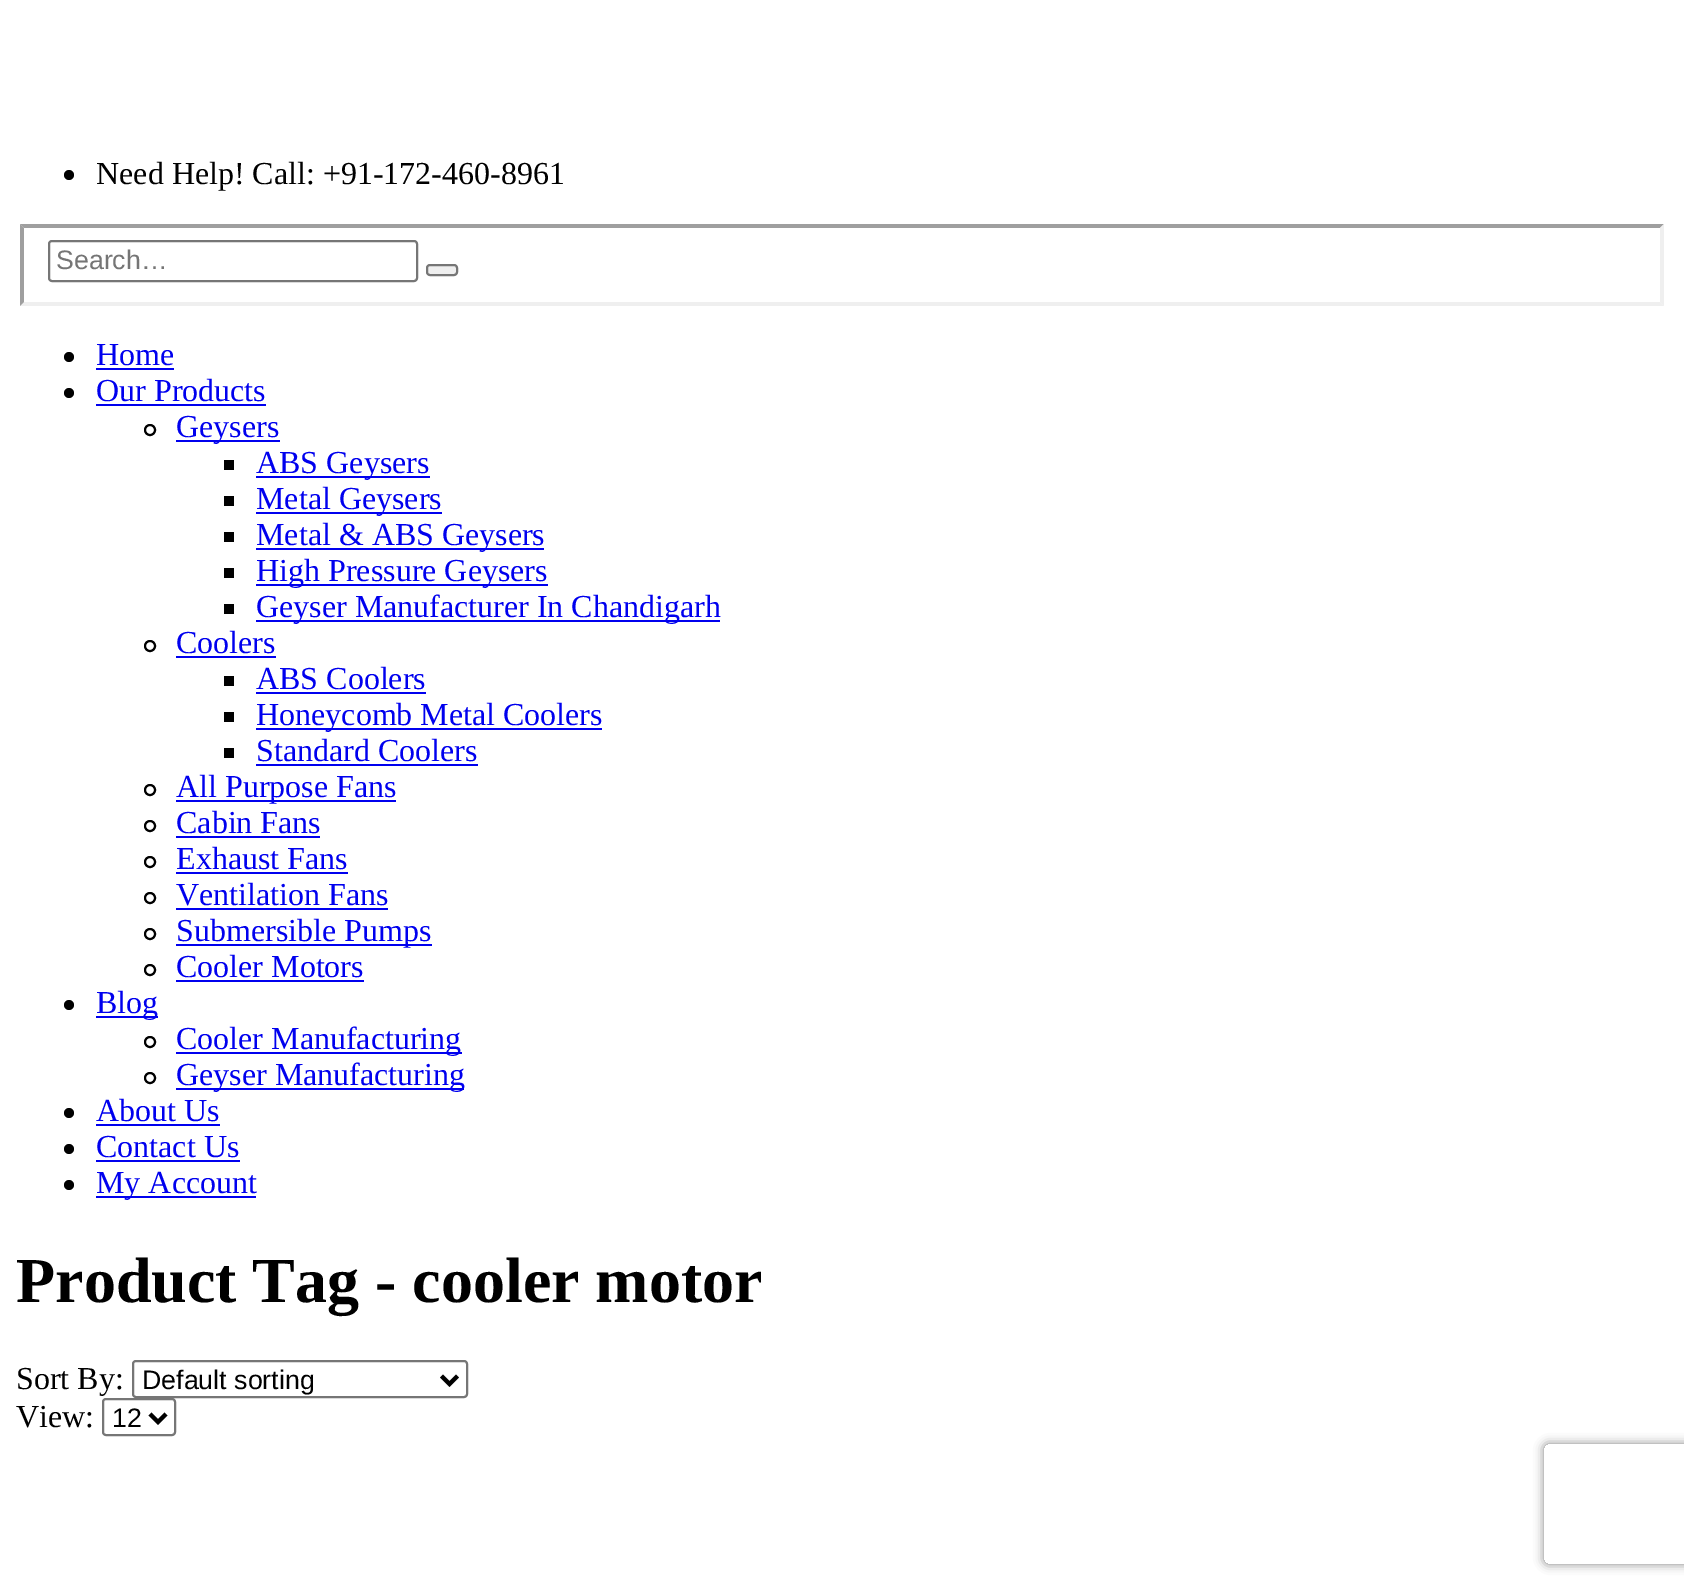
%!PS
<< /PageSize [1684 1591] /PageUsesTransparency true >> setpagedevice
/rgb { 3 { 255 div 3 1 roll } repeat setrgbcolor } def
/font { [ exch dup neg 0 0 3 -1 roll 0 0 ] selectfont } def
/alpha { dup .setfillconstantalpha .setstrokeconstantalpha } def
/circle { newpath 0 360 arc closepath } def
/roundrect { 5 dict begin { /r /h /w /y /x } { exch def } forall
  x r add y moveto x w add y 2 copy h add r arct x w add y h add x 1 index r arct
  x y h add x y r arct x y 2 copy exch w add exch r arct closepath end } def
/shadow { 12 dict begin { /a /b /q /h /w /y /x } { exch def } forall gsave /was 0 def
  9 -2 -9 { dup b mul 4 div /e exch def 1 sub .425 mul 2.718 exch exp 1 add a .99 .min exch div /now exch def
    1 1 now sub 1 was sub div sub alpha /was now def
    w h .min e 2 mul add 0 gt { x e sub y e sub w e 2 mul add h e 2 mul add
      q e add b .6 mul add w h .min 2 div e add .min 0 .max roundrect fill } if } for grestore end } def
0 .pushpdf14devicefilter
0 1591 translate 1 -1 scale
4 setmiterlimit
255 255 255 rgb
0 0 1684 1591 rectfill
0 0 0 rgb
69 175 5 circle fill
159 159 159 rgb
20 224 moveto 1664 224 lineto 1660 228 lineto 24 228 lineto closepath fill
239 239 239 rgb
1664 224 moveto 1664 306 lineto 1660 302 lineto 1660 228 lineto closepath fill
1664 306 moveto 20 306 lineto 24 302 lineto 1660 302 lineto closepath fill
159 159 159 rgb
20 306 moveto 20 224 lineto 24 228 lineto 24 302 lineto closepath fill
118 118 118 rgb
2 setlinewidth
49 241 368 40 3 roundrect stroke
239 239 239 rgb
427 265 30 10 3 roundrect gsave fill grestore
118 118 118 rgb
stroke
0 0 0 rgb
69 357 5 circle fill
0 0 238 rgb
96 368 78 2 rectfill
0 0 0 rgb
69 393 5 circle fill
0 0 238 rgb
96 404 170 2 rectfill
0 0 0 rgb
150 430 5 circle stroke
[
  [176 440 104 2 0 0 238]
  [224 460 10 10 0 0 0]
  [256 476 174 2 0 0 238]
  [224 496 10 10 0 0 0]
  [256 512 186 2 0 0 238]
  [224 532 10 10 0 0 0]
  [256 548 288 2 0 0 238]
  [224 568 10 10 0 0 0]
  [256 584 292 2 0 0 238]
  [224 604 10 10 0 0 0]
  [256 620 464 2 0 0 238]
] { aload pop rgb rectfill } forall
0 0 0 rgb
150 646 5 circle stroke
[
  [176 656 100 2 0 0 238]
  [224 676 10 10 0 0 0]
  [256 692 170 2 0 0 238]
  [224 712 10 10 0 0 0]
  [256 728 346 2 0 0 238]
  [224 748 10 10 0 0 0]
  [256 764 222 2 0 0 238]
] { aload pop rgb rectfill } forall
0 0 0 rgb
150 790 5 circle stroke
0 0 238 rgb
176 800 220 2 rectfill
0 0 0 rgb
150 826 5 circle stroke
0 0 238 rgb
176 836 144 2 rectfill
0 0 0 rgb
150 862 5 circle stroke
0 0 238 rgb
176 872 172 2 rectfill
0 0 0 rgb
150 898 5 circle stroke
0 0 238 rgb
176 908 212 2 rectfill
0 0 0 rgb
150 934 5 circle stroke
0 0 238 rgb
176 944 256 2 rectfill
0 0 0 rgb
150 970 5 circle stroke
0 0 238 rgb
176 980 188 2 rectfill
0 0 0 rgb
69 1005 5 circle fill
0 0 238 rgb
96 1016 62 2 rectfill
0 0 0 rgb
150 1042 5 circle stroke
0 0 238 rgb
176 1052 286 2 rectfill
0 0 0 rgb
150 1078 5 circle stroke
0 0 238 rgb
176 1088 288 2 rectfill
0 0 0 rgb
69 1113 5 circle fill
0 0 238 rgb
96 1124 124 2 rectfill
0 0 0 rgb
69 1149 5 circle fill
0 0 238 rgb
96 1160 144 2 rectfill
0 0 0 rgb
69 1185 5 circle fill
0 0 238 rgb
96 1196 160 2 rectfill
118 118 118 rgb
133 1361 334 36 3 roundrect stroke
0 0 0 rgb
4 setlinewidth
441.5 1376 moveto 449.5 1384 lineto 457.5 1376 lineto stroke
118 118 118 rgb
2 setlinewidth
103 1399 72 36 3 roundrect stroke
0 0 0 rgb
4 setlinewidth
150 1414 moveto 158 1422 lineto 166 1414 lineto stroke
gsave
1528 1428 moveto 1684 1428 lineto 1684 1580 lineto 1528 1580 lineto closepath 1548 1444 moveto 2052 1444 lineto 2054 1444 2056 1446 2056 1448 curveto 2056 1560 lineto 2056 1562 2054 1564 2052 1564 curveto 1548 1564 lineto 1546 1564 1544 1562 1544 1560 curveto 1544 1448 lineto 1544 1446 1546 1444 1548 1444 curveto closepath eoclip newpath
128 128 128 rgb
1544 1444 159 120 4 5 1 shadow
grestore
/LiberationSerif-Regular 32 font
96 184 moveto (Need Help! Call: +91-172-460-8961) show
/LiberationSans-Regular 26.75 font
117 117 117 rgb
56 269 moveto (Search…) show
/LiberationSerif-Regular 32 font
0 0 238 rgb
[
  [(Home) 96 365]
  [(Our Products) 96 401]
  [(Geysers) 176 437]
  [(ABS Geysers) 256 473]
  [(Metal Geysers) 256 509]
  [(Metal & ABS Geysers) 256 545]
  [(High Pressure Geysers) 256 581]
  [(Geyser Manufacturer In Chandigarh) 256 617]
  [(Coolers) 176 653]
  [(ABS Coolers) 256 689]
  [(Honeycomb Metal Coolers) 256 725]
  [(Standard Coolers) 256 761]
  [(All Purpose Fans) 176 797]
  [(Cabin Fans) 176 833]
  [(Exhaust Fans) 176 869]
  [(Ventilation Fans) 176 905]
  [(Submersible Pumps) 176 941]
  [(Cooler Motors) 176 977]
  [(Blog) 96 1013]
  [(Cooler Manufacturing) 176 1049]
  [(Geyser Manufacturing) 176 1085]
  [(About Us) 96 1121]
  [(Contact Us) 96 1157]
  [(My Account) 96 1193]
] { aload pop moveto show } forall
/LiberationSerif-Bold 64 font
0 0 0 rgb
16 1302 moveto (Product Tag - cooler motor) show
/LiberationSerif-Regular 32 font
16 1389 moveto (Sort By:) show
/LiberationSans-Regular 26.75 font
142 1389 moveto (Default sorting) show
/LiberationSerif-Regular 32 font
16 1427 moveto (View:) show
/LiberationSans-Regular 26.75 font
112 1427 moveto (12) show
.poppdf14devicefilter showpage
